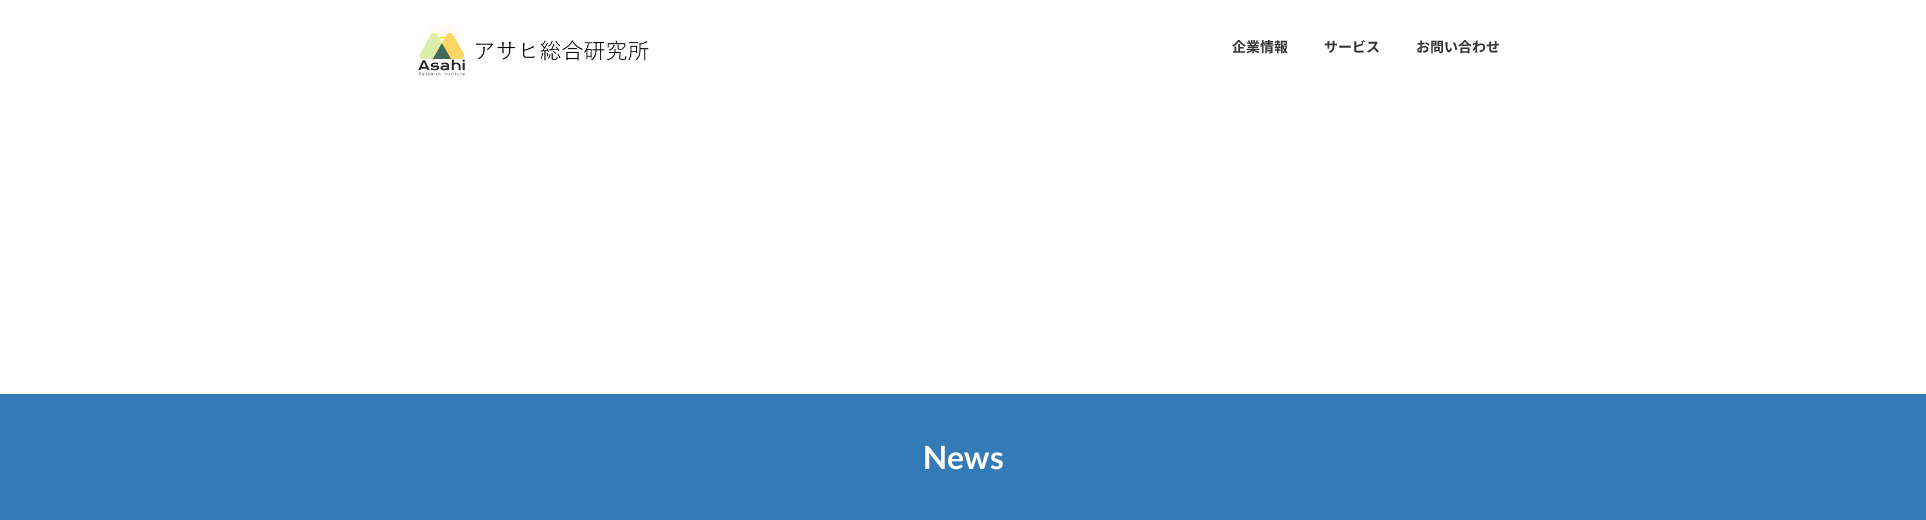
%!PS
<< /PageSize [1926 520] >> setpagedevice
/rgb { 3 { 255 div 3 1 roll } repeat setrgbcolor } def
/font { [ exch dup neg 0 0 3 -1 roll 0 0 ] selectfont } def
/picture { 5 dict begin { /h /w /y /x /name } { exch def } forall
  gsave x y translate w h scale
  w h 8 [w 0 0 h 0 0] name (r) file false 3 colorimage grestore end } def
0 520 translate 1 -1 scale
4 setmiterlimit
255 255 255 rgb
0 0 1926 520 rectfill
(img/1.rgb) 418 22 231 54 picture
51 122 183 rgb
0 394 1926 126 rectfill
/NotoSansJP-Bold 14 font
51 51 51 rgb
[
  [(企業情報) 1232 52]
  [(サービス) 1324 52]
  [(お問い合わせ) 1416 52]
] { aload pop moveto show } forall
/Lato-Bold 32 font
255 255 255 rgb
923 469 moveto (News) show
showpage
